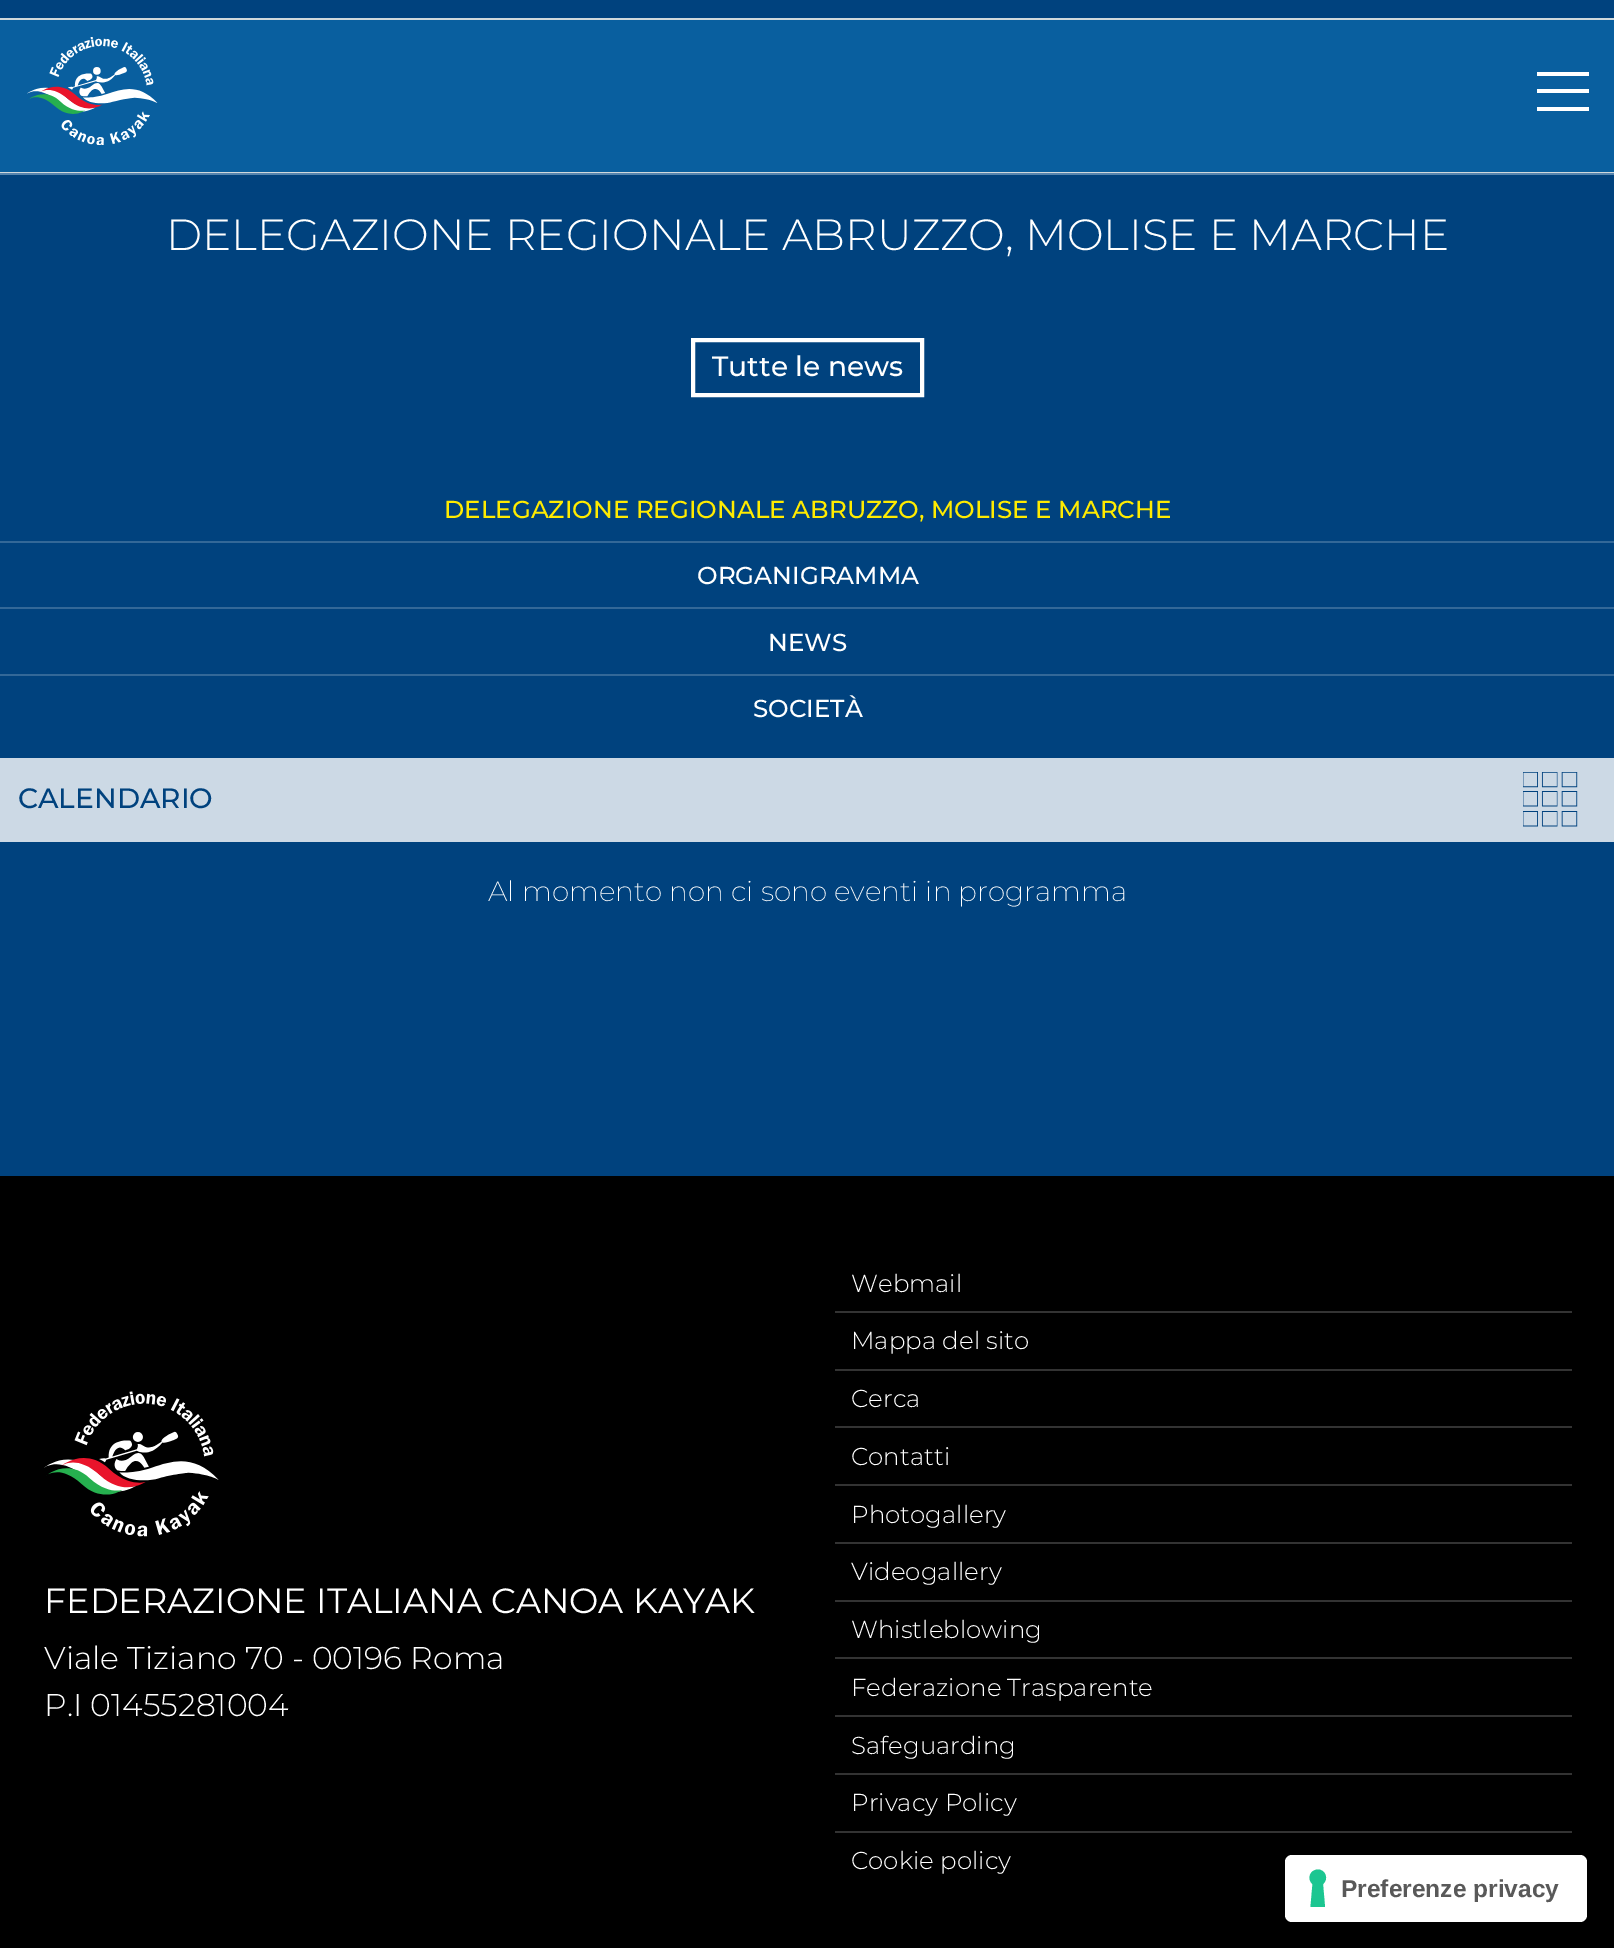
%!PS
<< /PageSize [1614 1948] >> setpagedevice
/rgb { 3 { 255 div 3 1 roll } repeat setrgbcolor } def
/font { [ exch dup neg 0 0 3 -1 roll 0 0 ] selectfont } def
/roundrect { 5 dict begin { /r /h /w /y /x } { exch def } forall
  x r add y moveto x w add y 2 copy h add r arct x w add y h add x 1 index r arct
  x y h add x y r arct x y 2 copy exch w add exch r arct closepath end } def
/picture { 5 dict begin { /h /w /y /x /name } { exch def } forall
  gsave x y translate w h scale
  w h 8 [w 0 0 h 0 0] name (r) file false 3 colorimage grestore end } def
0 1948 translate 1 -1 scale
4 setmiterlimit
9 95 159 rgb
0 0 1614 1948 rectfill
[
  [0 172 1614 1 207 216 220]
  [0 0 1614 18 0 66 126]
  [0 18 1614 2 207 216 220]
] { aload pop rgb rectfill } forall
(img/1.rgb) 27 37 131 108 picture
[
  [1537 72 52 4 255 255 255]
  [1537 89 52 4 255 255 255]
  [1537 107 52 4 255 255 255]
  [0 175 1614 1001 0 66 126]
  [0 173 1614 2 86 133 175]
] { aload pop rgb rectfill } forall
255 255 255 rgb
4 setlinewidth
693 340 229 55 rectstroke
[
  [0 541 1614 2 51 104 152]
  [0 607 1614 2 51 104 152]
  [0 674 1614 2 51 104 152]
  [0 758 1614 84 204 217 229]
] { aload pop rgb rectfill } forall
(img/2.rgb) 1523 772 55 55 picture
0 0 0 rgb
0 1176 1614 772 rectfill
(img/3.rgb) 44 1391 175 146 picture
[
  [835 1311 737 2 51 51 51]
  [835 1369 737 2 51 51 51]
  [835 1426 737 2 51 51 51]
  [835 1484 737 2 51 51 51]
  [835 1542 737 2 51 51 51]
  [835 1600 737 2 51 51 51]
  [835 1657 737 2 51 51 51]
  [835 1715 737 2 51 51 51]
  [835 1773 737 2 51 51 51]
  [835 1831 737 2 51 51 51]
] { aload pop rgb rectfill } forall
255 255 255 rgb
1285 1855 302 67 7 roundrect fill
28 198 145 rgb
1318 1869.5 moveto 1325.5 1869.5 1329 1879 1323 1884 curveto 1325 1907 lineto 1310.5 1907 lineto 1312.5 1884 lineto 1306.5 1879 1310 1869.5 1318 1869.5 curveto closepath eofill
/Montserrat-Light 43.75 font
255 255 255 rgb
166 250 moveto (DELEGAZIONE REGIONALE ABRUZZO, MOLISE E MARCHE) show
/Montserrat-Medium 28 font
712 376 moveto (Tutte le news) show
/Montserrat-Medium 24.5 font
255 235 0 rgb
444 518 moveto (DELEGAZIONE REGIONALE ABRUZZO, MOLISE E MARCHE) show
255 255 255 rgb
[
  [(ORGANIGRAMMA) 697 584]
  [(NEWS) 768 651]
  [(SOCIETÀ) 753 717]
] { aload pop moveto show } forall
/Montserrat-Medium 28 font
0 66 126 rgb
18 808 moveto (CALENDARIO) show
/Montserrat-ExtraLight 28 font
255 255 255 rgb
488 901 moveto (Al momento non ci sono eventi in programma) show
/Montserrat-Regular 35 font
44 1613 moveto (FEDERAZIONE ITALIANA CANOA KAYAK) show
/Montserrat-Light 31.5 font
44 1669 moveto (Viale Tiziano 70 - 00196 Roma) show
44 1716 moveto (P.I 01455281004) show
/Montserrat-Light 24.5 font
[
  [(Webmail) 851 1292]
  [(Mappa del sito) 851 1349]
  [(Cerca) 851 1407]
  [(Contatti) 851 1465]
  [(Photogallery) 851 1523]
  [(Videogallery) 851 1580]
  [(Whistleblowing) 851 1638]
  [(Federazione Trasparente) 851 1696]
  [(Safeguarding) 851 1754]
  [(Privacy Policy) 851 1811]
  [(Cookie policy) 851 1869]
] { aload pop moveto show } forall
/LiberationSans-Bold 24.5 font
89 89 89 rgb
1341 1897 moveto (Preferenze privacy) show
showpage
